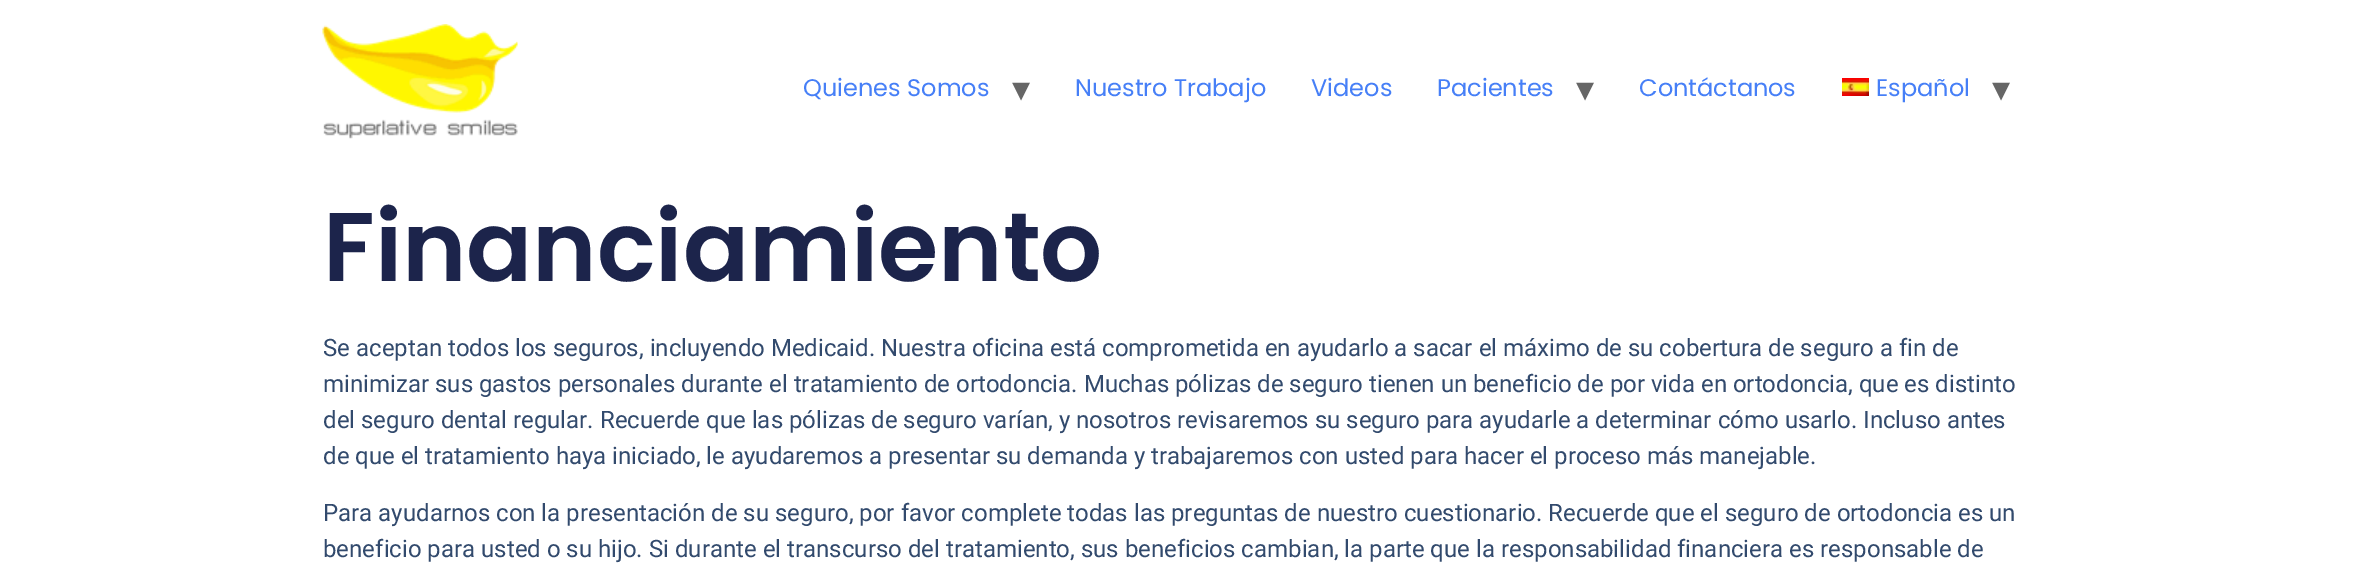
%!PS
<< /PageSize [2355 572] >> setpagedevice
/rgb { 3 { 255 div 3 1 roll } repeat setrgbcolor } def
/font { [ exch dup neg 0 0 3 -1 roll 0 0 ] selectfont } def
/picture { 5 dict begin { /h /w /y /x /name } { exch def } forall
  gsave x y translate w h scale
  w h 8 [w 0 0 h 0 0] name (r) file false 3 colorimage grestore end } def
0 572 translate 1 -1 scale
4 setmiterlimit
255 255 255 rgb
0 0 2355 572 rectfill
(img/1.rgb) 322 24 196 115 picture
(img/2.rgb) 1842 78 27 18 picture
/Poppins-Regular 24 font
70 127 247 rgb
803 96 moveto (Quienes Somos) show
/DejaVuSans-Regular 36 font
102 102 102 rgb
1012 101 moveto (▾) show
/Poppins-Regular 24 font
70 127 247 rgb
[
  [(Nuestro Trabajo) 1075 96]
  [(Videos) 1311 96]
  [(Pacientes) 1437 96]
] { aload pop moveto show } forall
/DejaVuSans-Regular 36 font
102 102 102 rgb
1576 101 moveto (▾) show
/Poppins-Regular 24 font
70 127 247 rgb
1639 96 moveto (Contáctanos) show
1876 96 moveto (Español) show
/DejaVuSans-Regular 36 font
102 102 102 rgb
1992 101 moveto (▾) show
/Poppins-SemiBold 97.5 font
28 36 75 rgb
323 281 moveto (Financiamiento) show
/Roboto-Regular 24 font
50 74 109 rgb
[
  [(Se aceptan todos los seguros, incluyendo Medicaid. Nuestra oficina está comprometida en ayudarlo a sacar el máximo de su cobertura de seguro a fin de) 323 356]
  [(minimizar sus gastos personales durante el tratamiento de ortodoncia. Muchas pólizas de seguro tienen un beneficio de por vida en ortodoncia, que es distinto) 323 392]
  [(del seguro dental regular. Recuerde que las pólizas de seguro varían, y nosotros revisaremos su seguro para ayudarle a determinar cómo usarlo. Incluso antes) 323 428]
  [(de que el tratamiento haya iniciado, le ayudaremos a presentar su demanda y trabajaremos con usted para hacer el proceso más manejable.) 323 464]
  [(Para ayudarnos con la presentación de su seguro, por favor complete todas las preguntas de nuestro cuestionario. Recuerde que el seguro de ortodoncia es un) 323 521]
  [(beneficio para usted o su hijo. Si durante el transcurso del tratamiento, sus beneficios cambian, la parte que la responsabilidad financiera es responsable de) 323 557]
] { aload pop moveto show } forall
showpage
